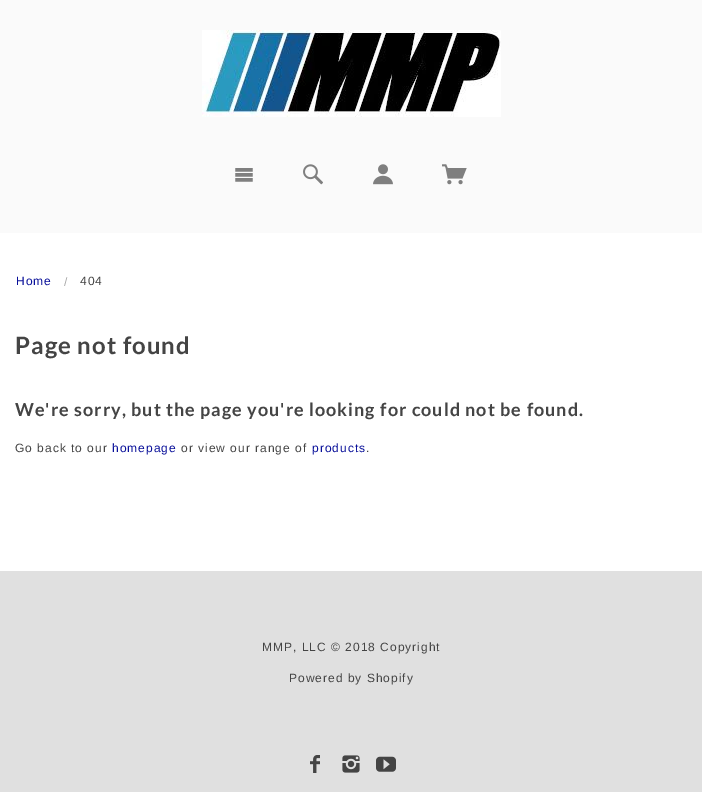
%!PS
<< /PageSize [702 792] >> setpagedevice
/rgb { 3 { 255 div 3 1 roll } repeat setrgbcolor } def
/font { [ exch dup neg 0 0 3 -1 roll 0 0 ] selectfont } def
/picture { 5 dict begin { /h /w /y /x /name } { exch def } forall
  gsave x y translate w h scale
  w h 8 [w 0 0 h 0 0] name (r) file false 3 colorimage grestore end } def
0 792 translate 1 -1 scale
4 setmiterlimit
255 255 255 rgb
0 0 702 792 rectfill
250 250 250 rgb
0 0 702 233 rectfill
(img/1.rgb) 202 30 299 87 picture
(img/2.rgb) 235 168 18 14 picture
(img/3.rgb) 303 164 20 21 picture
(img/4.rgb) 373 164 20 21 picture
(img/5.rgb) 442 164 25 21 picture
224 224 224 rgb
0 571 702 221 rectfill
(img/6.rgb) 310 755 10 18 picture
(img/7.rgb) 342 755 18 18 picture
(img/8.rgb) 376 756 20 16 picture
/LiberationSans-Regular 12 font
9 16 154 rgb
16 285 moveto 1 0 (Home) ashow
170 170 170 rgb
64 286 moveto 1 0 (/) ashow
68 68 68 rgb
80 285 moveto 1 0 (404) ashow
/Lato-Bold 24 font
15 354 moveto 1 0 (Page not found) ashow
/Lato-Bold 18 font
15 416 moveto 1 0 (We're sorry, but the page you're looking for could not be found.) ashow
/LiberationSans-Regular 12 font
15 452 moveto 1 0 (Go back to our) ashow
9 16 154 rgb
112 452 moveto 1 0 (homepage) ashow
68 68 68 rgb
181 452 moveto 1 0 (or view our range of) ashow
9 16 154 rgb
312 452 moveto 1 0 (products) ashow
68 68 68 rgb
366 452 moveto 1 0 (.) ashow
262 651 moveto 1 0 (MMP, LLC © 2018 Copyright) ashow
289 682 moveto 1 0 (Powered by Shopify) ashow
showpage
